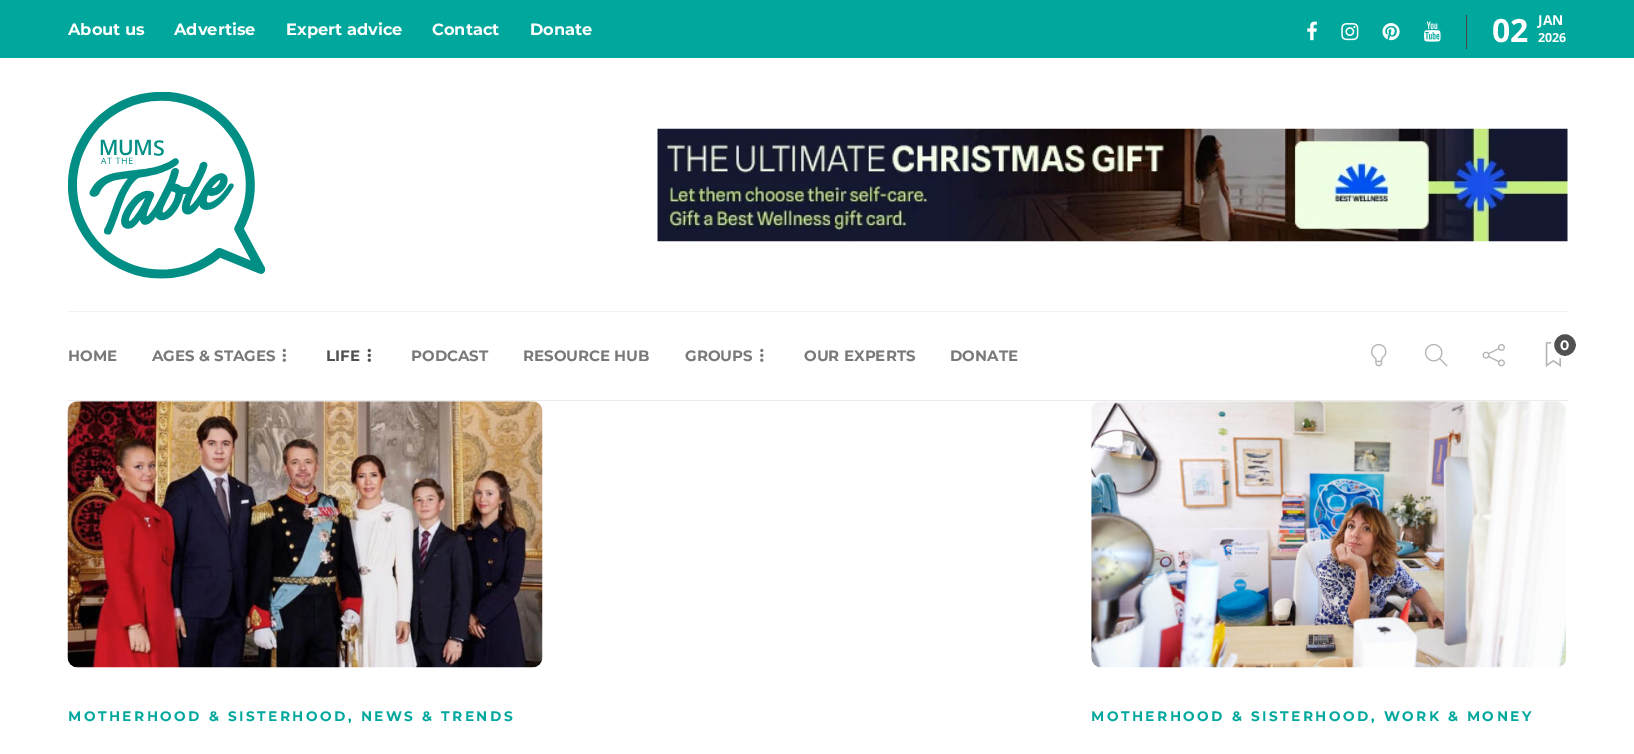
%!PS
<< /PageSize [1634 754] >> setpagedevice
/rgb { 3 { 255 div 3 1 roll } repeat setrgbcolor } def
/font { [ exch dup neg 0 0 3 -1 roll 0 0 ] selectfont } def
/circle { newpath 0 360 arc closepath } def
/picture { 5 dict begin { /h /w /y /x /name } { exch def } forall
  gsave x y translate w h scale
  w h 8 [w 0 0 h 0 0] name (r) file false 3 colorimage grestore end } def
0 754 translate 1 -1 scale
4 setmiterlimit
255 255 255 rgb
0 0 1634 754 rectfill
0 167 157 rgb
0 0 1634 58 rectfill
67 67 67 rgb
1466 15 1 34 rectfill
(img/1.rgb) 1307 21 10 20 picture
(img/2.rgb) 1341 23 18 18 picture
(img/3.rgb) 1382 23 18 18 picture
(img/4.rgb) 1424 21 17 21 picture
241 241 241 rgb
68 311 1500 1 rectfill
(img/5.rgb) 68 91 198 188 picture
(img/6.rgb) 657 128 911 114 picture
235 235 235 rgb
68 400 1500 1 rectfill
(img/7.rgb) 1371 343 16 24 picture
(img/8.rgb) 1425 343 23 24 picture
(img/9.rgb) 1482 344 23 23 picture
(img/10.rgb) 1545 342 17 25 picture
80 80 80 rgb
1565 345 12.5 circle gsave fill grestore
255 255 255 rgb
3 setlinewidth
stroke
(img/11.rgb) 282 348 4 14 picture
(img/12.rgb) 367 348 4 14 picture
(img/13.rgb) 760 348 4 14 picture
(img/14.rgb) 67 401 476 267 picture
(img/15.rgb) 1091 401 476 267 picture
/Montserrat-Bold 16.25 font
[
  [(About us) 68 35]
  [(Advertise) 174 35]
  [(Expert advice) 286 35]
  [(Contact) 432 35]
  [(Donate) 530 35]
] { aload pop moveto show } forall
/OpenSans-Bold 32 font
1492 42 moveto (02) show
/OpenSans-Bold 13.75 font
1538 25 moveto (JAN) show
/OpenSans-Bold 12.5 font
1538 42 moveto (2026) show
/Montserrat-Bold 13.75 font
1560 350 moveto (0) show
/Montserrat-Bold 15 font
121 121 121 rgb
68 361 moveto (HOME) show
152 361 moveto (AGES & STAGES) show
80 80 80 rgb
326 361 moveto (LIFE) show
121 121 121 rgb
[
  [(PODCAST) 411 361]
  [(RESOURCE HUB) 523 361]
  [(GROUPS) 685 361]
  [(OUR EXPERTS) 804 361]
  [(DONATE) 950 361]
] { aload pop moveto show } forall
/Montserrat-Bold 13.75 font
0 167 157 rgb
68 721 moveto 2.5 0 (MOTHERHOOD & SISTERHOOD, NEWS & TRENDS) ashow
1091 721 moveto 2.5 0 (MOTHERHOOD & SISTERHOOD, WORK & MONEY) ashow
showpage
